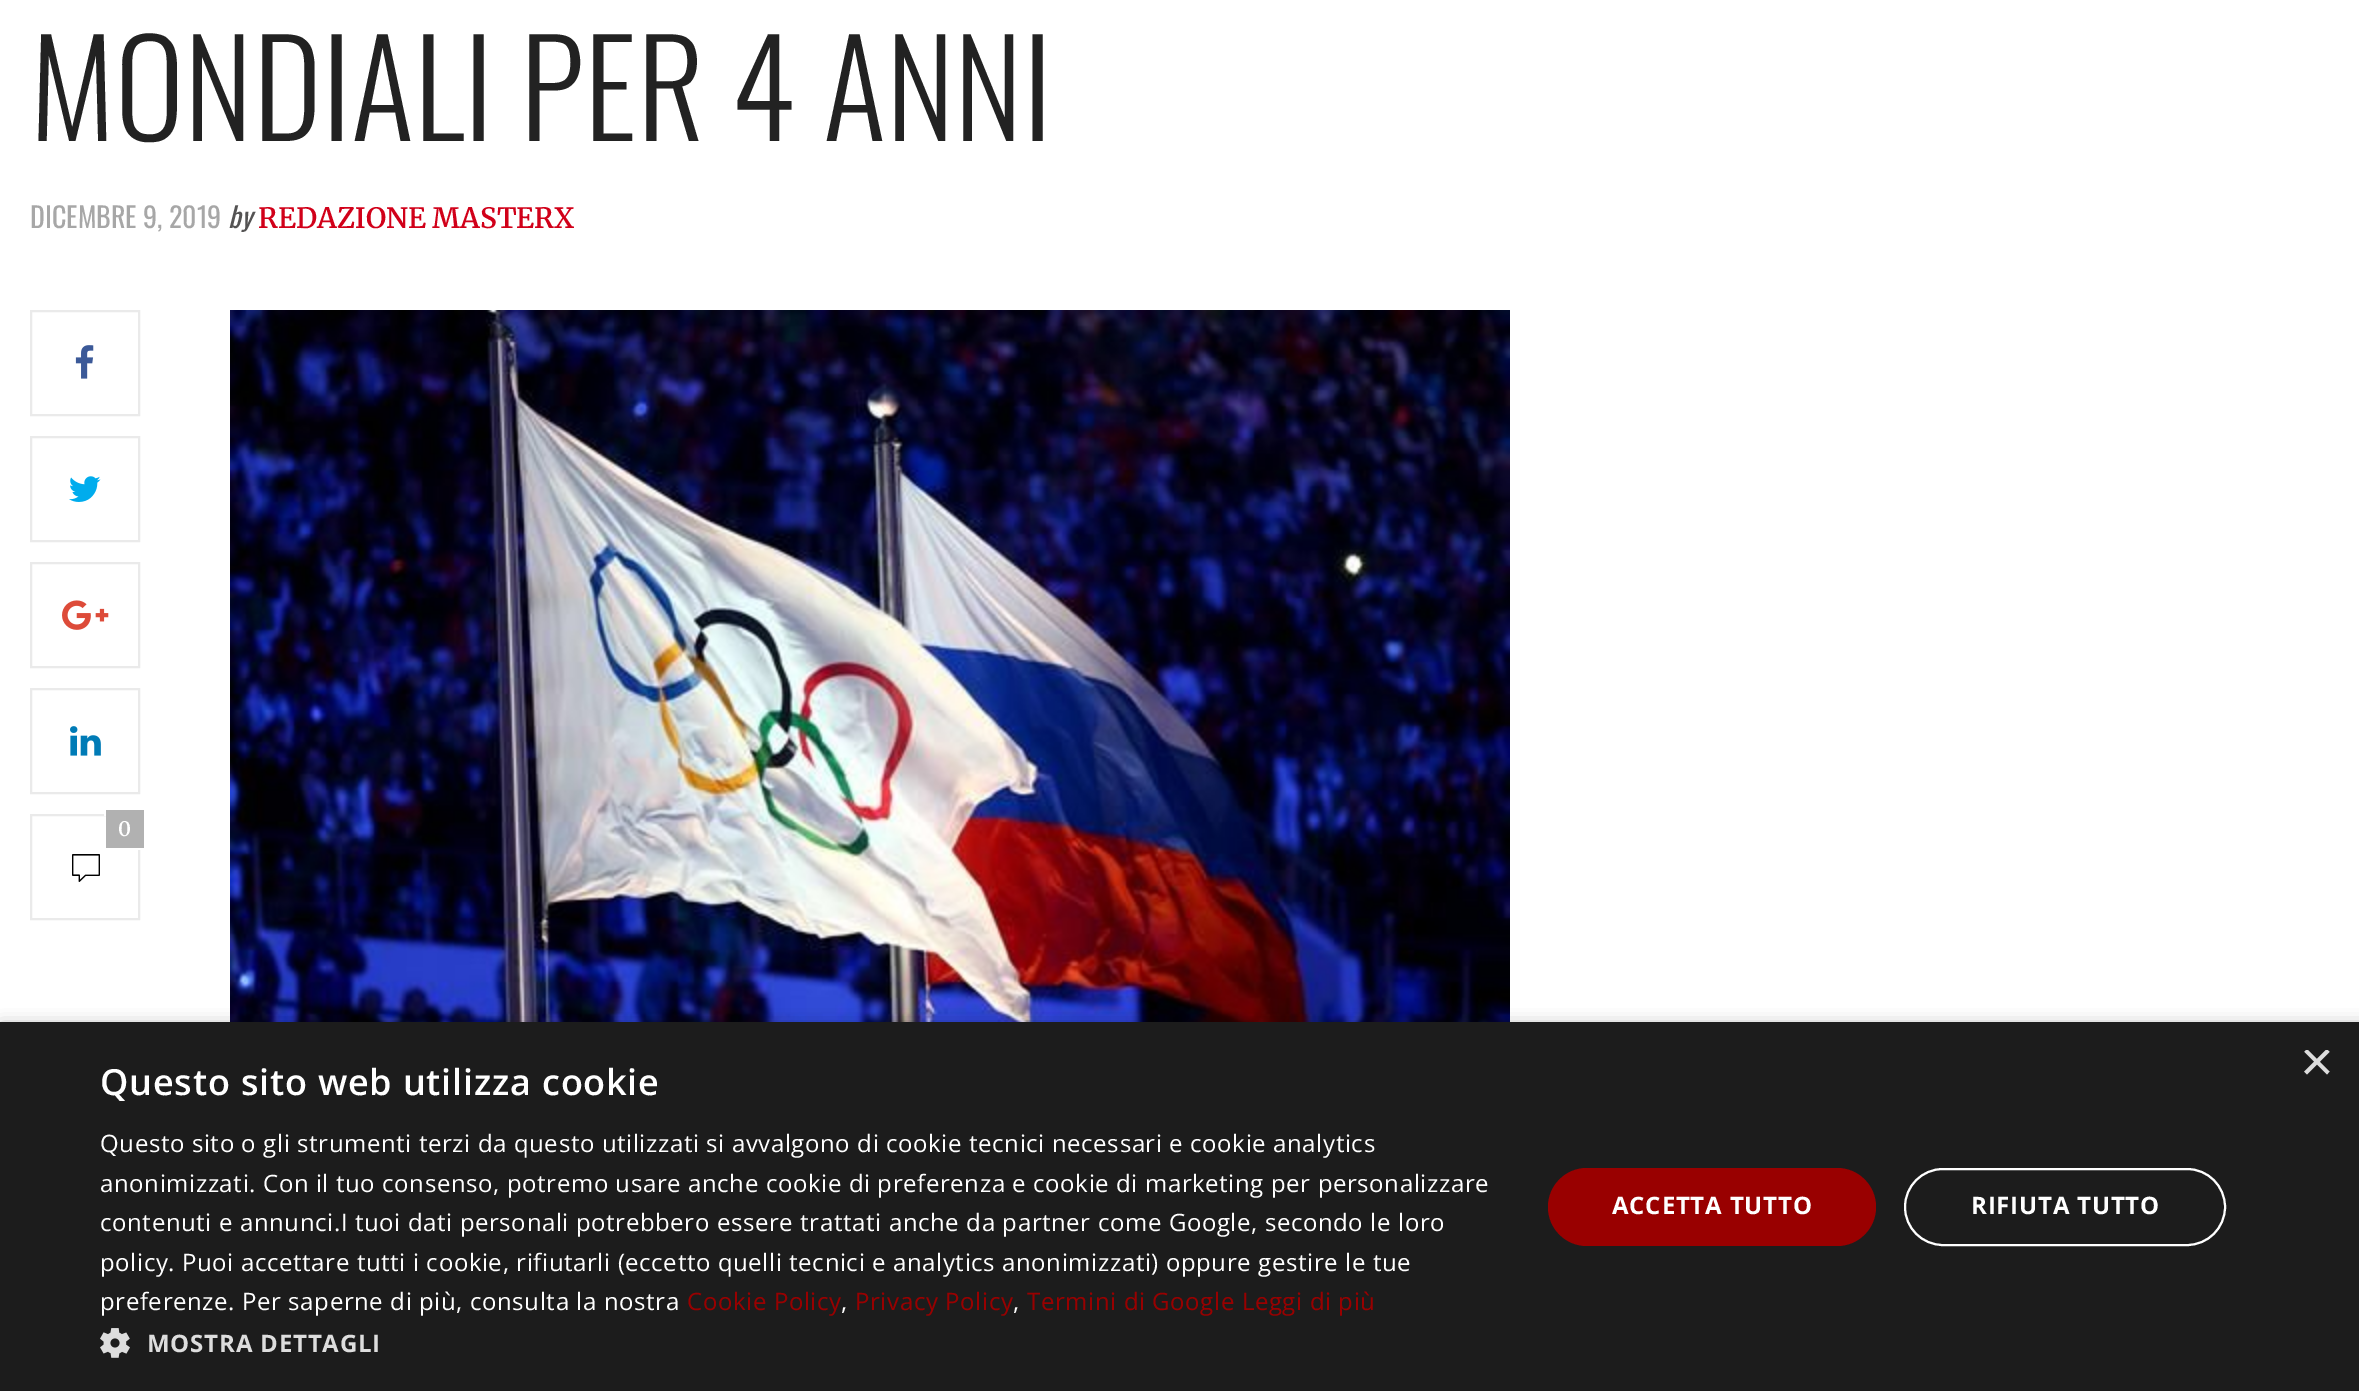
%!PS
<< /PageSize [2359 1391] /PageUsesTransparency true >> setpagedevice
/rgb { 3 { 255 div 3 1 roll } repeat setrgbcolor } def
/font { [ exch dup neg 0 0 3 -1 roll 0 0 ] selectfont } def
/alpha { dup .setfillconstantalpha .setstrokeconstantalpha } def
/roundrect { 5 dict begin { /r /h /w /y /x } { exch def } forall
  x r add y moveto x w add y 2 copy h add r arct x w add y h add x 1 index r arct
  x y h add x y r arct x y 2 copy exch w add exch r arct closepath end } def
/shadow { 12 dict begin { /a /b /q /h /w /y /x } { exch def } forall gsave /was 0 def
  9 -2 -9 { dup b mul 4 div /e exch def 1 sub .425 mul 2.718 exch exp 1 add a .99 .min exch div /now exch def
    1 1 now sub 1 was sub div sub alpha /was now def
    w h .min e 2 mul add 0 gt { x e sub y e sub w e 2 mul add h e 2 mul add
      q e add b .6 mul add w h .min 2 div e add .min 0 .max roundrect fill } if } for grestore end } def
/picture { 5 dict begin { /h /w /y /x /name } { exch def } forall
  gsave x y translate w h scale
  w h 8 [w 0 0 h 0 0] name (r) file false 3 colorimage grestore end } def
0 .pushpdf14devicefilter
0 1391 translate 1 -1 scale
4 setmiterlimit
255 255 255 rgb
0 0 2359 1391 rectfill
234 234 234 rgb
2 setlinewidth
31 311 108 104 rectstroke
(img/1.rgb) 75 345 19 34 picture
31 437 108 104 rectstroke
(img/2.rgb) 69 476 32 26 picture
31 563 108 104 rectstroke
(img/3.rgb) 62 600 47 30 picture
31 689 108 104 rectstroke
(img/4.rgb) 70 726 31 30 picture
31 815 108 104 rectstroke
[
  [106 810 38 38 177 177 177]
  [138 848 6 2 255 255 255]
  [104 810 2 6 255 255 255]
] { aload pop rgb rectfill } forall
(img/5.rgb) 72 854 28 28 picture
(img/6.rgb) 230 310 1280 712 picture
0 0 0 rgb
2 1026 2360 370 0 8 0.35 shadow
28 28 28 rgb
0 1022 2359 369 rectfill
(img/7.rgb) 100 1328 30 30 picture
153 0 0 rgb
1548 1168 328 78 39 roundrect fill
255 255 255 rgb
1905 1169 320 76 38 roundrect stroke
/Oswald-Light 132 font
34 34 34 rgb
30 141 moveto (MONDIALI PER 4 ANNI) show
/Oswald-Regular 28 font
167 167 167 rgb
30 228 moveto (DICEMBRE 9, 2019) show
/Oswald-Italic 28 font
84 83 83 rgb
228 228 moveto (by) show
/Merriweather-SemiBold 28 font
209 0 25 rgb
258 228 moveto (REDAZIONE MASTERX) show
/Merriweather-SemiBold 20 font
255 255 255 rgb
118 836 moveto (0) show
gsave
2300 1050 30 30 rectclip
/LiberationSans-Regular 58 font
221 221 221 rgb
2300 1081 moveto (×) show
grestore
/OpenSans-SemiBold 36 font
100 1095 moveto 0.8 0 (Questo sito web utilizza cookie) ashow
/OpenSans-Regular 24 font
100 1152 moveto 0.6 0 (Questo sito o gli strumenti terzi da questo utilizzati si avvalgono di cookie tecnici necessari e cookie analytics) ashow
100 1192 moveto 0.6 0 (anonimizzati. Con il tuo consenso, potremo usare anche cookie di preferenza e cookie di marketing per personalizzare) ashow
100 1231 moveto 0.6 0 (contenuti e annunci.I tuoi dati personali potrebbero essere trattati anche da partner come Google, secondo le loro) ashow
100 1271 moveto 0.6 0 (policy. Puoi accettare tutti i cookie, rifiutarli \(eccetto quelli tecnici e analytics anonimizzati\) oppure gestire le tue) ashow
100 1310 moveto 0.6 0 (preferenze. Per saperne di più, consulta la nostra) ashow
153 0 0 rgb
687 1310 moveto 0.6 0 (Cookie Policy) ashow
255 255 255 rgb
841 1310 moveto 0.6 0 (,) ashow
153 0 0 rgb
855 1310 moveto 0.6 0 (Privacy Policy) ashow
255 255 255 rgb
1013 1310 moveto 0.6 0 (,) ashow
153 0 0 rgb
1027 1310 moveto 0.6 0 (Termini di Google Leggi di più) ashow
/OpenSans-Bold 24 font
221 221 221 rgb
147 1352 moveto 0.8 0 (MOSTRA DETTAGLI) ashow
255 255 255 rgb
1612 1214 moveto 0.8 0 (ACCETTA TUTTO) ashow
1971 1214 moveto 0.8 0 (RIFIUTA TUTTO) ashow
.poppdf14devicefilter showpage
